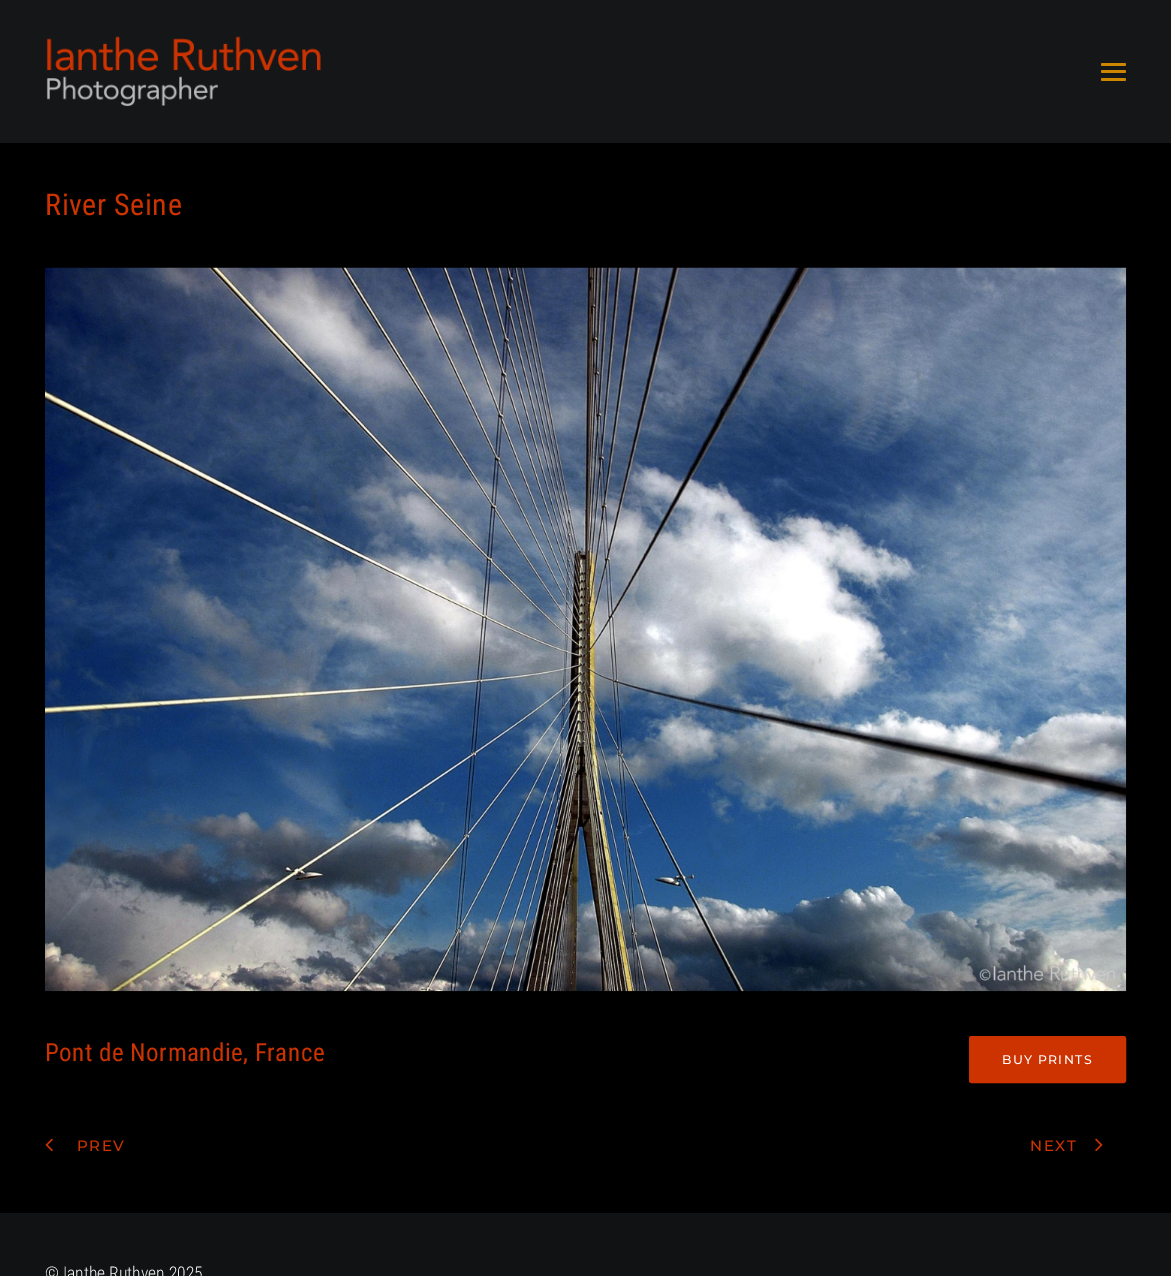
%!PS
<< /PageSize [1171 1276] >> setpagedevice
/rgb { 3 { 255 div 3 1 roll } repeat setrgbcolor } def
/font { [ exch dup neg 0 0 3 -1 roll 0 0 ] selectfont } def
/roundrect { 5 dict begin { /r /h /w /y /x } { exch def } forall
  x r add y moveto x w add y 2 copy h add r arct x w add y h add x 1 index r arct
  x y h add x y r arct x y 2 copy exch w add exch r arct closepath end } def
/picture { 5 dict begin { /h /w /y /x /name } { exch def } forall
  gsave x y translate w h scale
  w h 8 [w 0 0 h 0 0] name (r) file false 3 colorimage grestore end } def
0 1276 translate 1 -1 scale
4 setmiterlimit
16 18 19 rgb
0 0 1171 1276 rectfill
20 22 24 rgb
0 0 1171 143 rectfill
(img/1.rgb) 46 36 275 70 picture
204 134 0 rgb
1101 70 25 3 1.5 roundrect fill
1101 63 25 3 1.5 roundrect fill
1101 78 25 3 1.5 roundrect fill
0 0 0 rgb
0 143 1171 1070 rectfill
(img/2.rgb) 45 267 1082 725 picture
204 51 0 rgb
969.5 1036.5 156 46 2 roundrect gsave fill grestore
stroke
(img/3.rgb) 45 1138 8 14 picture
(img/4.rgb) 1095 1138 8 14 picture
/RobotoCondensed-Regular 30 font
45 215 moveto 0.6 0 (River Seine) ashow
/RobotoCondensed-Regular 25 font
45 1061 moveto 0.5 0 (Pont de Normandie, France) ashow
/Montserrat-Medium 12.5 font
255 255 255 rgb
1002 1064 moveto 1.25 0 (BUY PRINTS) ashow
/Montserrat-Medium 15 font
204 51 0 rgb
77 1151 moveto 1.5 0 (PREV) ashow
1030 1151 moveto 1.5 0 (NEXT) ashow
/RobotoCondensed-Light 17.5 font
247 247 247 rgb
45 1279 moveto (© Ianthe Ruthven 2025) show
showpage
